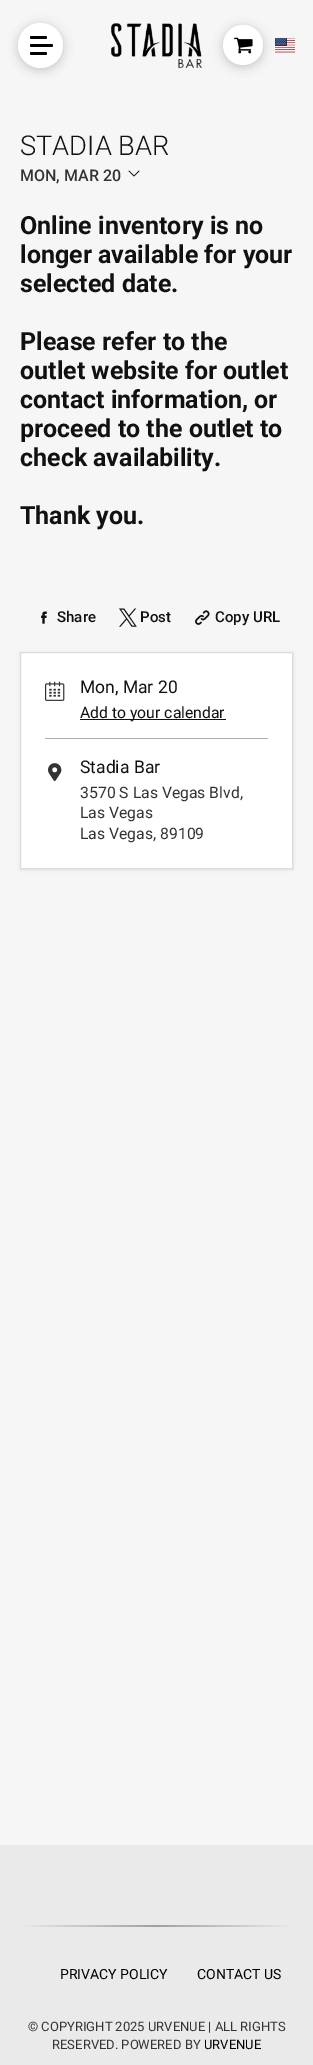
%!PS
<< /PageSize [313 2065] /PageUsesTransparency true >> setpagedevice
/rgb { 3 { 255 div 3 1 roll } repeat setrgbcolor } def
/font { [ exch dup neg 0 0 3 -1 roll 0 0 ] selectfont } def
/alpha { dup .setfillconstantalpha .setstrokeconstantalpha } def
/circle { newpath 0 360 arc closepath } def
/roundrect { 5 dict begin { /r /h /w /y /x } { exch def } forall
  x r add y moveto x w add y 2 copy h add r arct x w add y h add x 1 index r arct
  x y h add x y r arct x y 2 copy exch w add exch r arct closepath end } def
/shadow { 12 dict begin { /a /b /q /h /w /y /x } { exch def } forall gsave /was 0 def
  9 -2 -9 { dup b mul 4 div /e exch def 1 sub .425 mul 2.718 exch exp 1 add a .99 .min exch div /now exch def
    1 1 now sub 1 was sub div sub alpha /was now def
    w h .min e 2 mul add 0 gt { x e sub y e sub w e 2 mul add h e 2 mul add
      q e add b .6 mul add w h .min 2 div e add .min 0 .max roundrect fill } if } for grestore end } def
/picture { 5 dict begin { /h /w /y /x /name } { exch def } forall
  gsave x y translate w h scale
  w h 8 [w 0 0 h 0 0] name (r) file false 3 colorimage grestore end } def
0 .pushpdf14devicefilter
0 2065 translate 1 -1 scale
4 setmiterlimit
246 246 246 rgb
0 0 313 2065 rectfill
0 0 0 rgb
18 25 45 45 22.5 5 0.2 shadow
255 255 255 rgb
40.5 45.5 22.5 circle fill
0 0 0 rgb
30 36 17 3 1.5 roundrect fill
30 44 23 3 1.5 roundrect fill
30 52 17 3 1.5 roundrect fill
(img/1.rgb) 111 23 91 45 picture
223 27 40 40 20 5 0.2 shadow
255 255 255 rgb
243 45 20 circle fill
(img/2.rgb) 234 37 19 17 picture
(img/3.rgb) 275 38 20 15 picture
(img/4.rgb) 128 170 12 7 picture
(img/5.rgb) 41 611 6 13 picture
(img/6.rgb) 119 608 18 19 picture
(img/7.rgb) 195 610 15 15 picture
63 76 96 rgb
20 653 273 217 0 1.5 0.12 shadow
255 255 255 rgb
20.5 652.5 moveto 292.5 652.5 lineto 292.5 868.5 lineto 20.5 868.5 lineto closepath gsave fill grestore
220 220 220 rgb
stroke
(img/8.rgb) 45 681 20 20 picture
17 17 17 rgb
80 719 146 1 rectfill
173 173 173 rgb
45 738 223 1 rectfill
(img/9.rgb) 48 763 14 19 picture
234 234 234 rgb
0 1845 313 220 rectfill
gsave 20 1925 moveto 293 1925 lineto 293 1927 lineto 20 1927 lineto closepath clip newpath
<< /ShadingType 2 /ColorSpace /DeviceRGB /Coords [20 1926 293 1926] /Extend [true true] /Function << /FunctionType 3 /Domain [0 1] /Functions [<< /FunctionType 2 /Domain [0 1] /C0 [0.918 0.918 0.918] /C1 [0.624 0.624 0.647] /N 1 >> << /FunctionType 2 /Domain [0 1] /C0 [0.624 0.624 0.647] /C1 [0.918 0.918 0.918] /N 1 >>] /Bounds [0.5] /Encode [0 1 0 1] >> >> shfill grestore
/Roboto-Light 27.25 font
17 17 17 rgb
20 155 moveto (STADIA BAR) show
/Roboto-Medium 16 font
51 51 51 rgb
20 181 moveto (MON, MAR 20) show
/Roboto-Bold 25 font
17 17 17 rgb
[
  [(Online inventory is no) 20 234]
  [(longer available for your) 20 263]
  [(selected date.) 20 292]
  [(Please refer to the) 20 350]
  [(outlet website for outlet) 20 379]
  [(contact information, or) 20 408]
  [(proceed to the outlet to) 20 437]
  [(check availability.) 20 466]
  [(Thank you.) 20 524]
] { aload pop moveto show } forall
/Roboto-Medium 15 font
[
  [(Share) 57 622]
  [(Post) 140 622]
  [(Copy URL) 215 622]
] { aload pop moveto show } forall
/Roboto-Regular 17.5 font
80 693 moveto (Mon, Mar 20) show
/Roboto-Regular 15.75 font
80 718 moveto (Add to your calendar) show
/Roboto-Regular 17.5 font
80 773 moveto (Stadia Bar) show
/Roboto-Regular 15.75 font
51 51 51 rgb
[
  [(3570 S Las Vegas Blvd,) 80 798]
  [(Las Vegas) 80 818]
  [(Las Vegas, 89109) 80 839]
] { aload pop moveto show } forall
/Roboto-Regular 14 font
0 0 0 rgb
60 1979 moveto (PRIVACY POLICY) show
197 1979 moveto (CONTACT US) show
/Roboto-Regular 13 font
51 51 51 rgb
28 2031 moveto (© COPYRIGHT 2025 URVENUE | ALL RIGHTS) show
52 2049 moveto (RESERVED. POWERED BY) show
0 0 0 rgb
204 2049 moveto (URVENUE) show
.poppdf14devicefilter showpage
